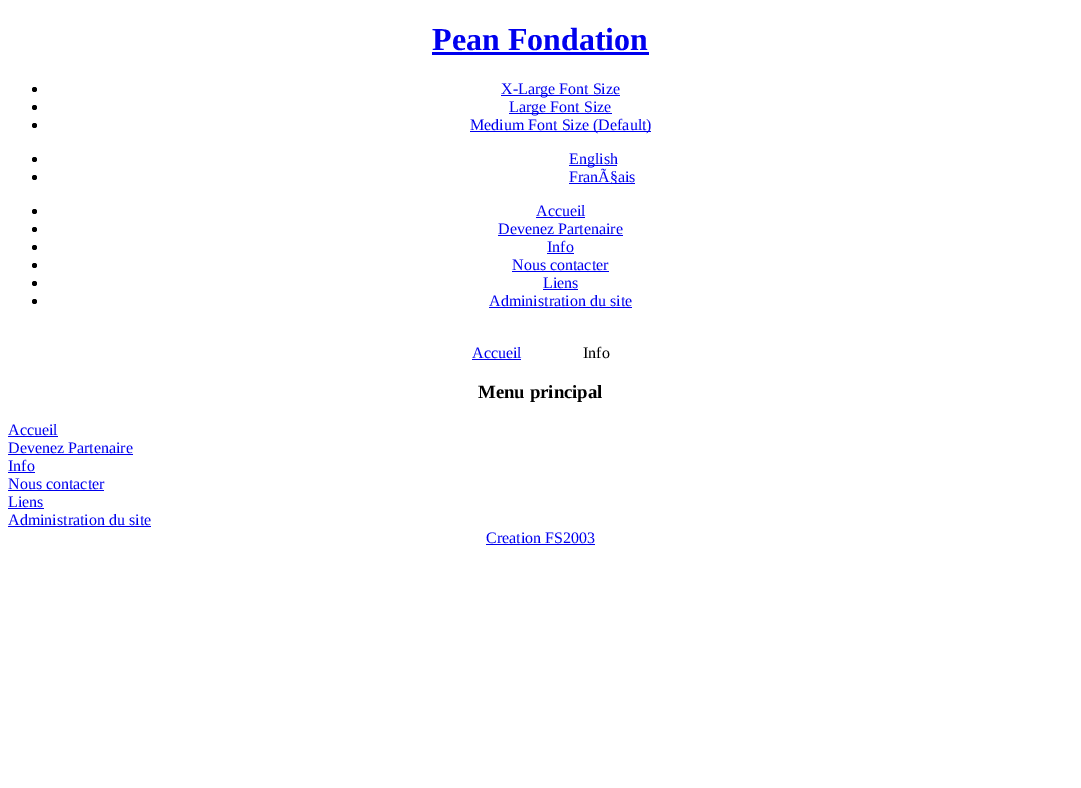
%!PS
<< /PageSize [1081 788] >> setpagedevice
/rgb { 3 { 255 div 3 1 roll } repeat setrgbcolor } def
/font { [ exch dup neg 0 0 3 -1 roll 0 0 ] selectfont } def
/circle { newpath 0 360 arc closepath } def
0 788 translate 1 -1 scale
4 setmiterlimit
255 255 255 rgb
0 0 1081 788 rectfill
0 0 238 rgb
432 52 217 3 rectfill
0 0 0 rgb
34.5 89.5 2.5 circle fill
0 0 238 rgb
501 95 119 1 rectfill
0 0 0 rgb
34.5 107.5 2.5 circle fill
0 0 238 rgb
509 113 103 1 rectfill
0 0 0 rgb
34.5 125.5 2.5 circle fill
0 0 238 rgb
470 131 181 1 rectfill
0 0 0 rgb
34.5 159.5 2.5 circle fill
0 0 238 rgb
569 165 48 1 rectfill
0 0 0 rgb
34.5 177.5 2.5 circle fill
0 0 238 rgb
569 183 66 1 rectfill
0 0 0 rgb
34.5 211.5 2.5 circle fill
0 0 238 rgb
536 217 49 1 rectfill
0 0 0 rgb
34.5 229.5 2.5 circle fill
0 0 238 rgb
498 235 125 1 rectfill
0 0 0 rgb
34.5 247.5 2.5 circle fill
0 0 238 rgb
547 253 27 1 rectfill
0 0 0 rgb
34.5 265.5 2.5 circle fill
0 0 238 rgb
512 271 97 1 rectfill
0 0 0 rgb
34.5 283.5 2.5 circle fill
0 0 238 rgb
543 289 35 1 rectfill
0 0 0 rgb
34.5 301.5 2.5 circle fill
[
  [489 307 143 1 0 0 238]
  [472 359 49 1 0 0 238]
  [8 436 50 1 0 0 238]
  [8 454 125 1 0 0 238]
  [8 472 27 1 0 0 238]
  [8 490 96 1 0 0 238]
  [8 508 36 1 0 0 238]
  [8 526 143 1 0 0 238]
  [486 544 109 1 0 0 238]
] { aload pop rgb rectfill } forall
/LiberationSerif-Bold 32 font
432 50 moveto (Pean Fondation) show
/LiberationSerif-Regular 16 font
[
  [(X-Large Font Size) 501 94]
  [(Large Font Size) 509 112]
  [(Medium Font Size \(Default\)) 470 130]
  [(English) 569 164]
  [(FranÃ§ais) 569 182]
  [(Accueil) 536 216]
  [(Devenez Partenaire) 498 234]
  [(Info) 547 252]
  [(Nous contacter) 512 270]
  [(Liens) 543 288]
  [(Administration du site) 489 306]
  [(Accueil) 472 358]
] { aload pop moveto show } forall
0 0 0 rgb
583 358 moveto (Info) show
/LiberationSerif-Bold 18.75 font
478 398 moveto (Menu principal) show
/LiberationSerif-Regular 16 font
0 0 238 rgb
[
  [(Accueil) 8 435]
  [(Devenez Partenaire) 8 453]
  [(Info) 8 471]
  [(Nous contacter) 8 489]
  [(Liens) 8 507]
  [(Administration du site) 8 525]
  [(Creation FS2003) 486 543]
] { aload pop moveto show } forall
showpage
